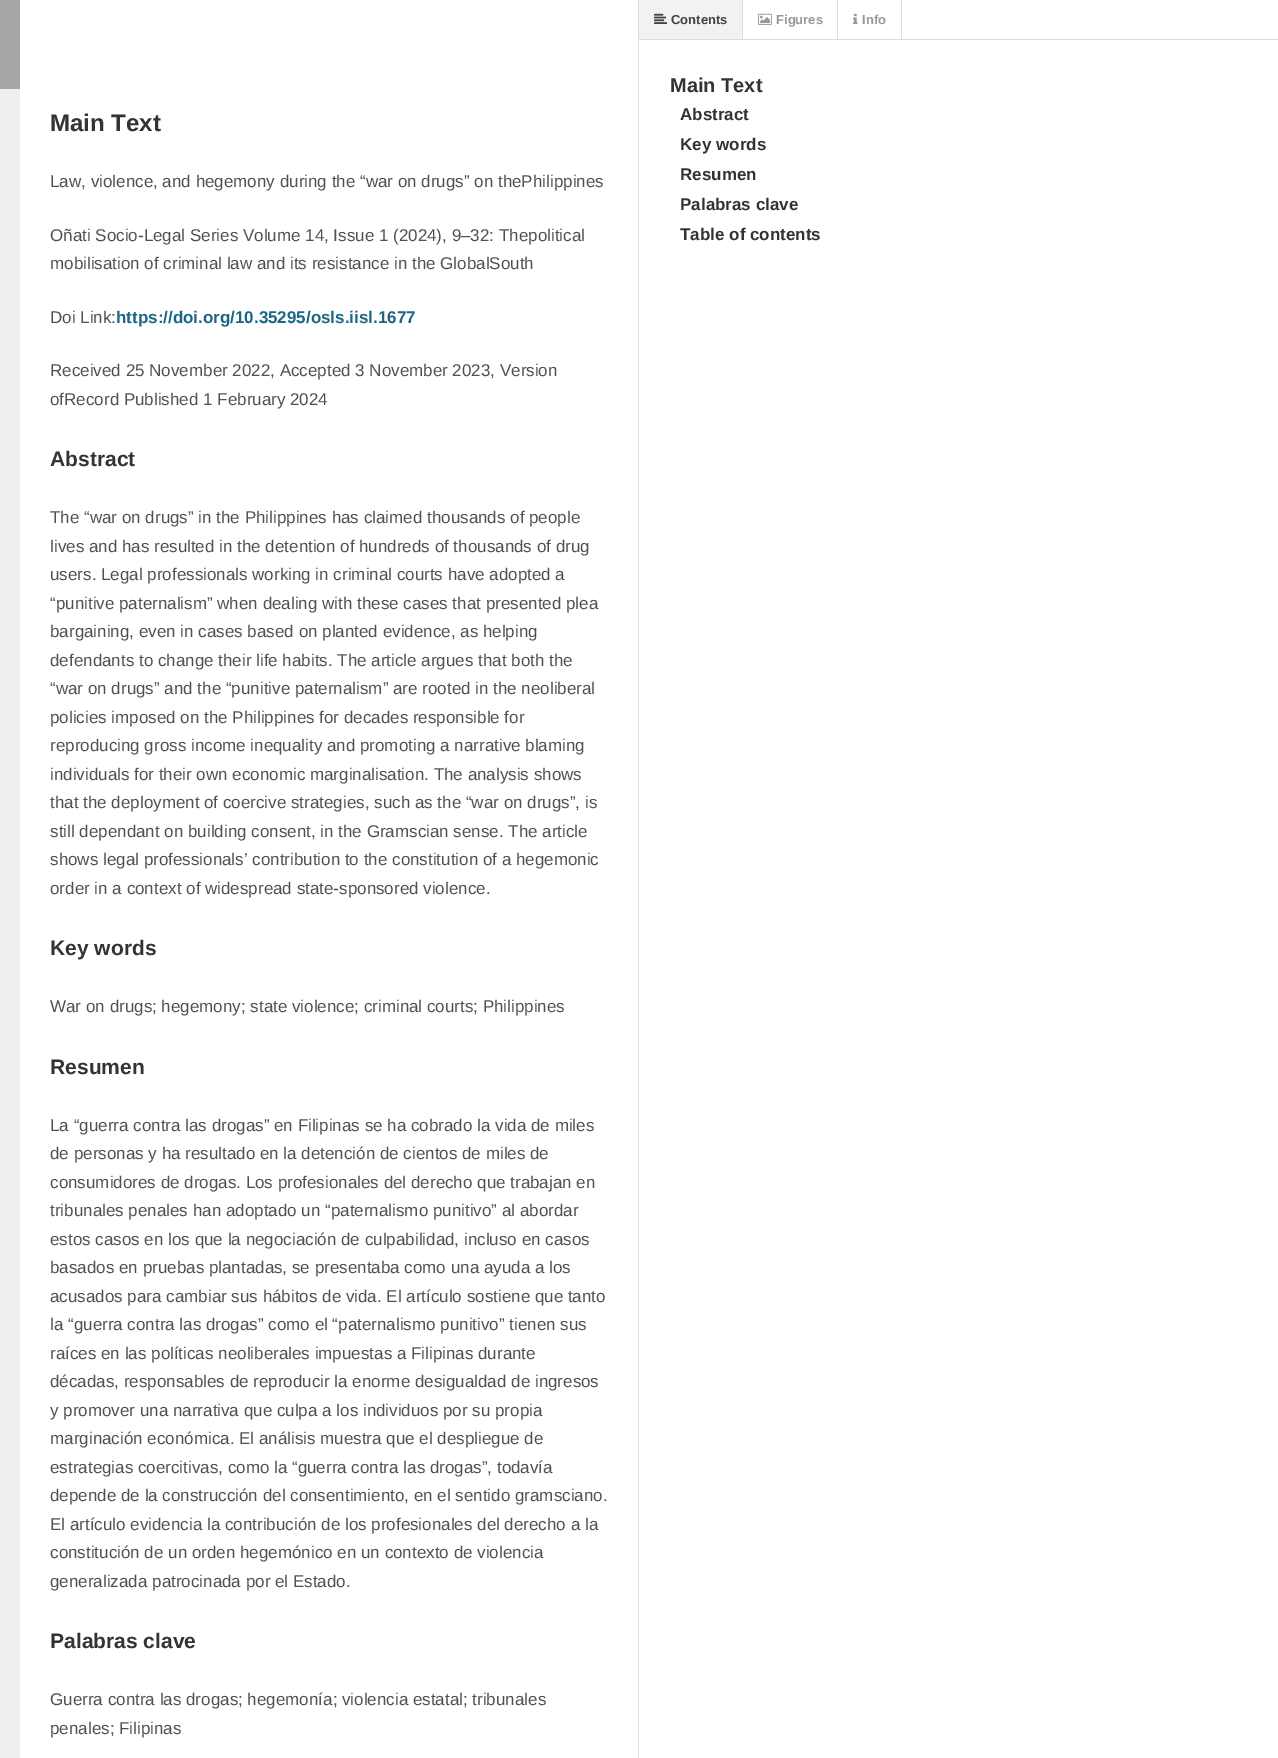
%!PS
<< /PageSize [1278 1758] >> setpagedevice
/rgb { 3 { 255 div 3 1 roll } repeat setrgbcolor } def
/font { [ exch dup neg 0 0 3 -1 roll 0 0 ] selectfont } def
/picture { 5 dict begin { /h /w /y /x /name } { exch def } forall
  gsave x y translate w h scale
  w h 8 [w 0 0 h 0 0] name (r) file false 3 colorimage grestore end } def
0 1758 translate 1 -1 scale
4 setmiterlimit
255 255 255 rgb
0 0 1278 1758 rectfill
[
  [638 0 1 1758 221 221 221]
  [0 89 20 1669 238 238 238]
  [0 0 20 89 167 167 167]
  [639 39 639 1 221 221 221]
  [639 0 103 39 242 242 242]
] { aload pop rgb rectfill } forall
gsave
639 0 639 39 rectclip
221 221 221 rgb
743 0 moveto 743 43 lineto 742 40 lineto 742 0 lineto closepath fill
grestore
(img/1.rgb) 654 13 13 11 picture
221 221 221 rgb
837 0 1 39 rectfill
(img/2.rgb) 758 13 14 12 picture
901 0 1 39 rectfill
(img/3.rgb) 853 13 5 11 picture
/LiberationSans-Bold 24 font
51 51 51 rgb
50 131 moveto (Main Text) show
/LiberationSans-Regular 17 font
80 80 80 rgb
[
  [(Law, violence, and hegemony during the “war on drugs” on thePhilippines) 50 187]
  [(Oñati Socio-Legal Series Volume 14, Issue 1 \(2024\), 9–32: Thepolitical) 50 241]
  [(mobilisation of criminal law and its resistance in the GlobalSouth) 50 269]
  [(Doi Link:) 50 323]
] { aload pop moveto show } forall
/LiberationSans-Bold 17 font
27 102 133 rgb
116 323 moveto (https://doi.org/10.35295/osls.iisl.1677) show
/LiberationSans-Regular 17 font
80 80 80 rgb
50 376 moveto (Received 25 November 2022, Accepted 3 November 2023, Version) show
50 405 moveto (ofRecord Published 1 February 2024) show
/LiberationSans-Bold 21 font
51 51 51 rgb
50 466 moveto (Abstract) show
/LiberationSans-Regular 17 font
80 80 80 rgb
[
  [(The “war on drugs” in the Philippines has claimed thousands of people) 50 523]
  [(lives and has resulted in the detention of hundreds of thousands of drug) 50 552]
  [(users. Legal professionals working in criminal courts have adopted a) 50 580]
  [(“punitive paternalism” when dealing with these cases that presented plea) 50 609]
  [(bargaining, even in cases based on planted evidence, as helping) 50 637]
  [(defendants to change their life habits. The article argues that both the) 50 666]
  [(“war on drugs” and the “punitive paternalism” are rooted in the neoliberal) 50 694]
  [(policies imposed on the Philippines for decades responsible for) 50 723]
  [(reproducing gross income inequality and promoting a narrative blaming) 50 751]
  [(individuals for their own economic marginalisation. The analysis shows) 50 780]
  [(that the deployment of coercive strategies, such as the “war on drugs”, is) 50 808]
  [(still dependant on building consent, in the Gramscian sense. The article) 50 837]
  [(shows legal professionals’ contribution to the constitution of a hegemonic) 50 865]
  [(order in a context of widespread state-sponsored violence.) 50 894]
] { aload pop moveto show } forall
/LiberationSans-Bold 21 font
51 51 51 rgb
50 955 moveto (Key words) show
/LiberationSans-Regular 17 font
80 80 80 rgb
50 1012 moveto (War on drugs; hegemony; state violence; criminal courts; Philippines) show
/LiberationSans-Bold 21 font
51 51 51 rgb
50 1074 moveto (Resumen) show
/LiberationSans-Regular 17 font
80 80 80 rgb
[
  [(La “guerra contra las drogas” en Filipinas se ha cobrado la vida de miles) 50 1131]
  [(de personas y ha resultado en la detención de cientos de miles de) 50 1159]
  [(consumidores de drogas. Los profesionales del derecho que trabajan en) 50 1188]
  [(tribunales penales han adoptado un “paternalismo punitivo” al abordar) 50 1216]
  [(estos casos en los que la negociación de culpabilidad, incluso en casos) 50 1245]
  [(basados en pruebas plantadas, se presentaba como una ayuda a los) 50 1273]
  [(acusados para cambiar sus hábitos de vida. El artículo sostiene que tanto) 50 1302]
  [(la “guerra contra las drogas” como el “paternalismo punitivo” tienen sus) 50 1330]
  [(raíces en las políticas neoliberales impuestas a Filipinas durante) 50 1359]
  [(décadas, responsables de reproducir la enorme desigualdad de ingresos) 50 1387]
  [(y promover una narrativa que culpa a los individuos por su propia) 50 1416]
  [(marginación económica. El análisis muestra que el despliegue de) 50 1444]
  [(estrategias coercitivas, como la “guerra contra las drogas”, todavía) 50 1473]
  [(depende de la construcción del consentimiento, en el sentido gramsciano.) 50 1501]
  [(El artículo evidencia la contribución de los profesionales del derecho a la) 50 1530]
  [(constitución de un orden hegemónico en un contexto de violencia) 50 1558]
  [(generalizada patrocinada por el Estado.) 50 1587]
] { aload pop moveto show } forall
/LiberationSans-Bold 21 font
51 51 51 rgb
50 1648 moveto (Palabras clave) show
/LiberationSans-Regular 17 font
80 80 80 rgb
50 1705 moveto (Guerra contra las drogas; hegemonía; violencia estatal; tribunales) show
50 1734 moveto (penales; Filipinas) show
/LiberationSans-Bold 13 font
68 68 68 rgb
671 24 moveto (Contents) show
153 153 153 rgb
776 24 moveto (Figures) show
862 24 moveto (Info) show
/LiberationSans-Bold 20 font
51 51 51 rgb
670 92 moveto (Main Text) show
/LiberationSans-Bold 17 font
[
  [(Abstract) 680 120]
  [(Key words) 680 150]
  [(Resumen) 680 180]
  [(Palabras clave) 680 210]
  [(Table of contents) 680 240]
] { aload pop moveto show } forall
showpage
